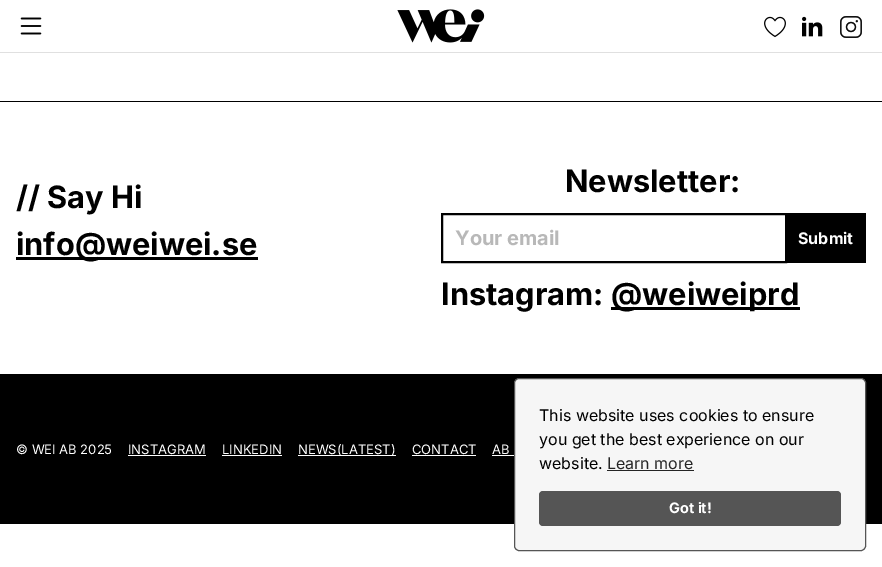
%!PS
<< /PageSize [882 567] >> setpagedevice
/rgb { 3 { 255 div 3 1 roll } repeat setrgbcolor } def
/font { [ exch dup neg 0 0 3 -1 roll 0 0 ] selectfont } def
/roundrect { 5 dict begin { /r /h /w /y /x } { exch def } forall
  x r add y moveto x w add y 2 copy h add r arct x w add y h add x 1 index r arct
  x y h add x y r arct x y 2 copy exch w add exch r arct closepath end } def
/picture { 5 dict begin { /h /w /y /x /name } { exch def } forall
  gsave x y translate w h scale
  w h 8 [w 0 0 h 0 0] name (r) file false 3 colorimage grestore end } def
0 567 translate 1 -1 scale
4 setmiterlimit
255 255 255 rgb
0 0 882 567 rectfill
224 224 224 rgb
0 52 882 1 rectfill
(img/1.rgb) 20 17 22 18 picture
(img/2.rgb) 397 9 88 34 picture
(img/3.rgb) 764 16 22 22 picture
(img/4.rgb) 802 16 21 21 picture
(img/5.rgb) 840 16 22 22 picture
0 0 0 rgb
0 101 882 1 rectfill
16 257 242 3 rectfill
2 setlinewidth
442 214 344 48 rectstroke
[
  [787 213 79 50 0 0 0]
  [611 307 189 3 0 0 0]
  [0 374 882 150 0 0 0]
  [128 455 78 1 255 255 255]
  [222 455 60 1 255 255 255]
  [298 455 98 1 255 255 255]
  [412 455 64 1 255 255 255]
  [492 455 22 1 255 255 255]
] { aload pop rgb rectfill } forall
246 246 246 rgb
514.5 378.5 351 172 4.5 roundrect gsave fill grestore
85 85 85 rgb
1 setlinewidth
stroke
37 37 37 rgb
607 470 87 1 rectfill
85 85 85 rgb
539 491 302 35 4 roundrect fill
/Inter-Bold 30.75 font
0 0 0 rgb
[
  [(// Say Hi) 16 208]
  [(info@weiwei.se) 16 255]
  [(Newsletter:) 565 192]
] { aload pop moveto show } forall
/Inter-Bold 20 font
184 184 184 rgb
455 245 moveto (Your email) show
/Inter-Bold 16 font
255 255 255 rgb
798 244 moveto (Submit) show
/Inter-Bold 30.75 font
0 0 0 rgb
441 305 moveto (Instagram:) show
611 305 moveto (@weiweiprd) show
/Inter-Regular 13 font
255 255 255 rgb
[
  [(© WEI AB 2025) 16 454]
  [(INSTAGRAM) 128 454]
  [(LINKEDIN) 222 454]
  [(NEWS\(LATEST\)) 298 454]
  [(CONTACT) 412 454]
  [(AB) 492 454]
] { aload pop moveto show } forall
/Inter-Regular 16 font
0 0 0 rgb
[
  [(This website uses cookies to ensure) 539 421]
  [(you get the best experience on our) 539 445]
  [(website.) 539 469]
] { aload pop moveto show } forall
37 37 37 rgb
607 469 moveto (Learn more) show
/Inter-Bold 14.5 font
255 255 255 rgb
669 513 moveto (Got it!) show
showpage
